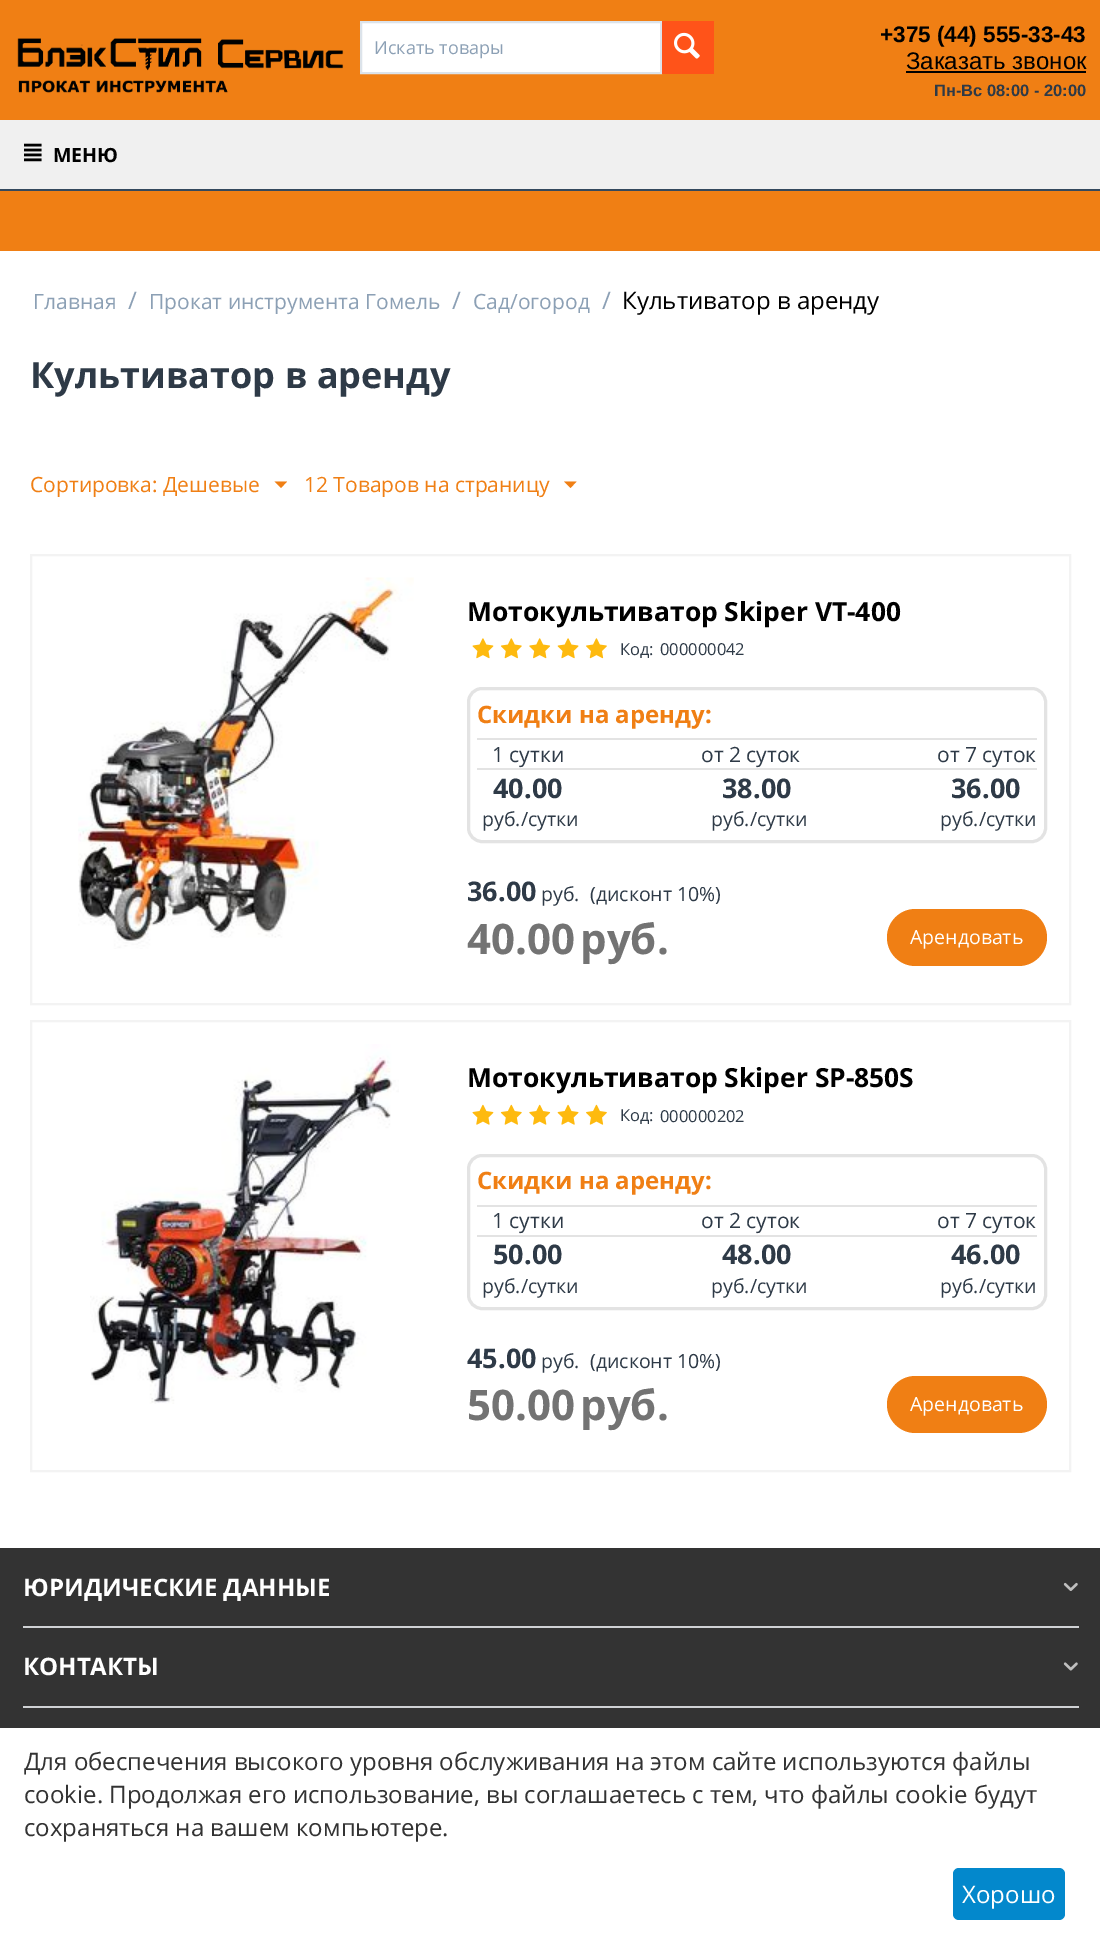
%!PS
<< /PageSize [1100 1944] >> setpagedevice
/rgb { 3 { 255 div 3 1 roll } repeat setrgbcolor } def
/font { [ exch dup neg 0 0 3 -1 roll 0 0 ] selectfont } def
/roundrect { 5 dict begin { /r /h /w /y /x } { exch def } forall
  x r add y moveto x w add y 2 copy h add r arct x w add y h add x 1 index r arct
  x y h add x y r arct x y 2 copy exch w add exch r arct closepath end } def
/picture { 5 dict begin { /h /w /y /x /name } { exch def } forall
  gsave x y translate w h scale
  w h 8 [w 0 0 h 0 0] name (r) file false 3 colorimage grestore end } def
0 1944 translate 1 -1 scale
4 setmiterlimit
255 255 255 rgb
0 0 1100 1944 rectfill
240 127 20 rgb
0 0 1100 251 rectfill
(img/1.rgb) 17 38 327 55 picture
255 255 255 rgb
361 22 moveto 661 22 lineto 661 73 lineto 361 73 lineto closepath gsave fill grestore
220 227 234 rgb
2 setlinewidth
stroke
255 83 25 rgb
662 21 52 53 rectfill
(img/2.rgb) 674 32 26 27 picture
[
  [906 71 180 2 0 0 0]
  [0 120 1100 69 240 240 240]
  [0 189 1100 2 52 73 94]
] { aload pop rgb rectfill } forall
(img/3.rgb) 24 143 18 19 picture
240 127 20 rgb
281 488 moveto 274.5 481.5 lineto 287 481.5 lineto closepath fill
570.5 488 moveto 564 481.5 lineto 576.5 481.5 lineto closepath fill
243 243 243 rgb
31 555 1039 449 rectstroke
(img/4.rgb) 78 577 336 372 picture
(img/5.rgb) 472 638 135 21 picture
227 227 227 rgb
3 setlinewidth
468.5 688.5 577 153 13.5 roundrect stroke
477 738 560 2 rectfill
477 768 560 2 rectfill
240 127 20 rgb
887 909 160 57 28.5 roundrect fill
243 243 243 rgb
2 setlinewidth
31 1021 1039 450 rectstroke
(img/6.rgb) 90 1044 309 360 picture
(img/7.rgb) 472 1104 135 21 picture
227 227 227 rgb
3 setlinewidth
468.5 1155.5 577 153 13.5 roundrect stroke
477 1205 560 2 rectfill
477 1235 560 2 rectfill
240 127 20 rgb
887 1376 160 57 28.5 roundrect fill
51 51 51 rgb
0 1548 1100 180 rectfill
207 209 212 rgb
23 1626 1056 2 rectfill
(img/8.rgb) 1063 1582 15 9 picture
23 1706 1056 2 rectfill
(img/9.rgb) 1063 1662 15 9 picture
3 136 204 rgb
953 1868 112 52 6 roundrect fill
/OpenSans-Regular 18 font
140 160 181 rgb
374 54 moveto (Искать товары) show
/LiberationSans-Bold 22.5 font
0 0 0 rgb
880 42 moveto (+375 \(44\) 555-33-43) show
/LiberationSans-Regular 24 font
906 69 moveto (Заказать звонок) show
/LiberationSans-Bold 16.5 font
46 58 71 rgb
934 96 moveto (Пн-Вс 08:00 - 20:00) show
/OpenSans-Bold 19.5 font
0 0 0 rgb
53 162 moveto (МЕНЮ) show
/OpenSans-Regular 21 font
140 160 181 rgb
33 309 moveto (Главная) show
/OpenSans-Regular 24 font
128 309 moveto (/) show
/OpenSans-Regular 21 font
149 309 moveto (Прокат инструмента Гомель) show
/OpenSans-Regular 24 font
452 309 moveto (/) show
/OpenSans-Regular 21 font
473 309 moveto (Сад/огород) show
/OpenSans-Regular 24 font
602 309 moveto (/) show
0 0 0 rgb
622 309 moveto (Культиватор в аренду) show
/OpenSans-Bold 36 font
46 58 71 rgb
30 388 moveto (Культиватор в аренду) show
/OpenSans-Regular 21 font
240 127 20 rgb
30 492 moveto (Сортировка: Дешевые) show
304 492 moveto (12 Товаров на страницу) show
/OpenSans-Bold 26.4 font
0 0 0 rgb
467 621 moveto (Мотокультиватор Skiper VT-400) show
/OpenSans-Regular 16.5 font
46 58 71 rgb
620 655 moveto (Код:) show
660 655 moveto (000000042) show
/OpenSans-Bold 24 font
240 127 20 rgb
477 723 moveto (Скидки на аренду:) show
/OpenSans-Regular 21 font
46 58 71 rgb
[
  [(1 сутки) 492 762]
  [(от 2 суток) 701 762]
  [(от 7 суток) 937 762]
] { aload pop moveto show } forall
/OpenSans-Bold 27 font
493 798 moveto (40.00) show
/OpenSans-Regular 19.5 font
482 826 moveto (руб./сутки) show
/OpenSans-Bold 27 font
722 798 moveto (38.00) show
/OpenSans-Regular 19.5 font
711 826 moveto (руб./сутки) show
/OpenSans-Bold 27 font
951 798 moveto (36.00) show
/OpenSans-Regular 19.5 font
940 826 moveto (руб./сутки) show
/OpenSans-Bold 27 font
467 901 moveto (36.00) show
/OpenSans-Regular 19.5 font
541 901 moveto (руб.) show
590 901 moveto (\(дисконт 10%\)) show
/OpenSans-Bold 42 font
115 115 115 rgb
467 954 moveto (40.00) show
580 954 moveto (руб.) show
/OpenSans-Regular 19.5 font
255 255 255 rgb
910 944 moveto (Арендовать) show
/OpenSans-Bold 26.4 font
0 0 0 rgb
467 1087 moveto (Мотокультиватор Skiper SP-850S) show
/OpenSans-Regular 16.5 font
46 58 71 rgb
620 1121 moveto (Код:) show
660 1122 moveto (000000202) show
/OpenSans-Bold 24 font
240 127 20 rgb
477 1189 moveto (Скидки на аренду:) show
/OpenSans-Regular 21 font
46 58 71 rgb
[
  [(1 сутки) 492 1228]
  [(от 2 суток) 701 1228]
  [(от 7 суток) 937 1228]
] { aload pop moveto show } forall
/OpenSans-Bold 27 font
493 1264 moveto (50.00) show
/OpenSans-Regular 19.5 font
482 1293 moveto (руб./сутки) show
/OpenSans-Bold 27 font
722 1264 moveto (48.00) show
/OpenSans-Regular 19.5 font
711 1293 moveto (руб./сутки) show
/OpenSans-Bold 27 font
951 1264 moveto (46.00) show
/OpenSans-Regular 19.5 font
940 1293 moveto (руб./сутки) show
/OpenSans-Bold 27 font
467 1368 moveto (45.00) show
/OpenSans-Regular 19.5 font
541 1368 moveto (руб.) show
590 1368 moveto (\(дисконт 10%\)) show
/OpenSans-Bold 42 font
115 115 115 rgb
467 1420 moveto (50.00) show
580 1420 moveto (руб.) show
/OpenSans-Regular 19.5 font
255 255 255 rgb
910 1411 moveto (Арендовать) show
/OpenSans-Bold 24 font
23 1596 moveto (ЮРИДИЧЕСКИЕ ДАННЫЕ) show
23 1675 moveto (КОНТАКТЫ) show
/OpenSans-Regular 24 font
51 51 51 rgb
[
  [(Для обеспечения высокого уровня обслуживания на этом сайте используются файлы) 24 1770]
  [(cookie. Продолжая его использование, вы соглашаетесь с тем, что файлы cookie будут) 24 1803]
  [(сохраняться на вашем компьютере.) 24 1836]
] { aload pop moveto show } forall
255 255 255 rgb
962 1903 moveto (Хорошо) show
showpage
